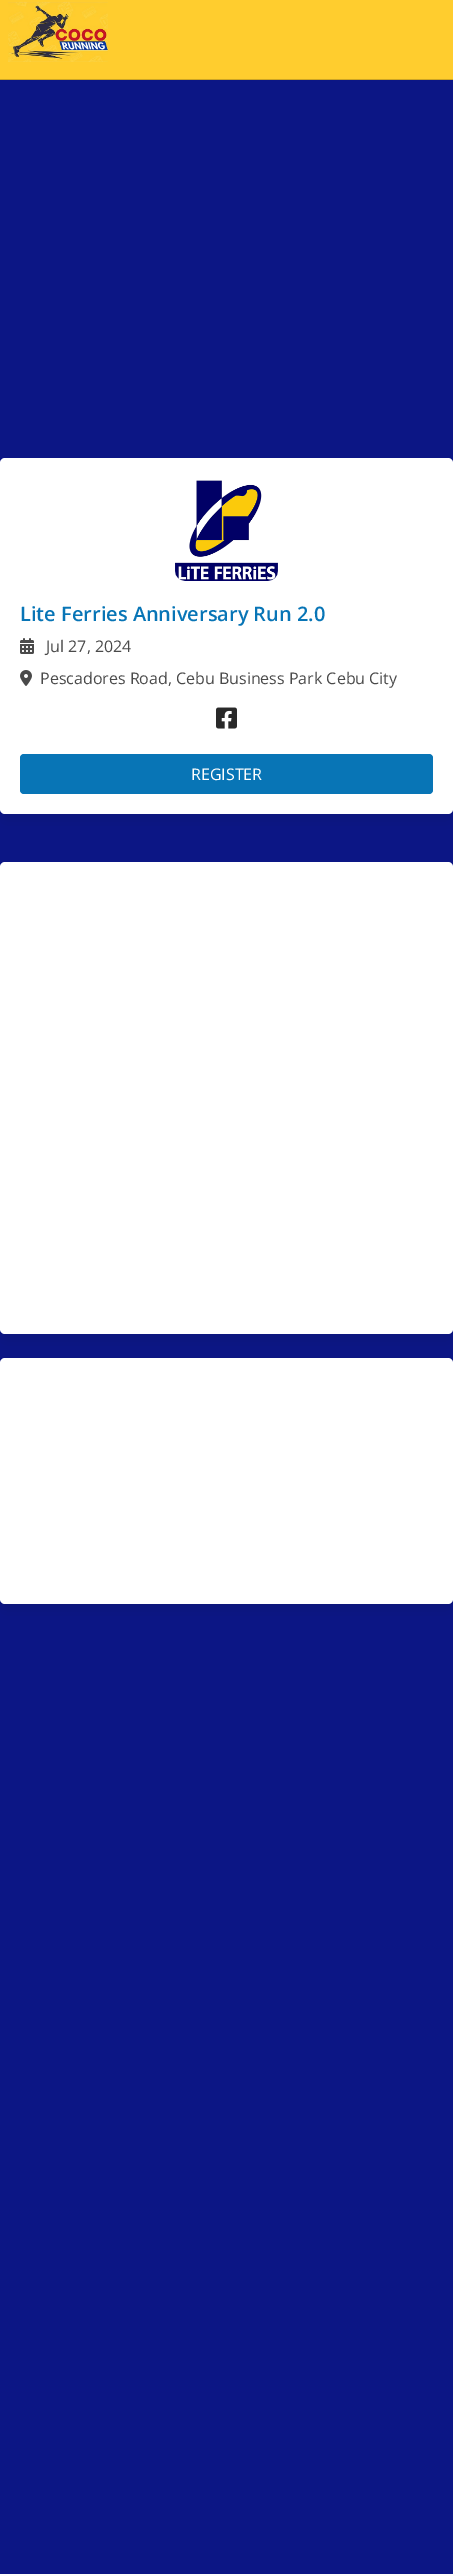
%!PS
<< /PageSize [453 2574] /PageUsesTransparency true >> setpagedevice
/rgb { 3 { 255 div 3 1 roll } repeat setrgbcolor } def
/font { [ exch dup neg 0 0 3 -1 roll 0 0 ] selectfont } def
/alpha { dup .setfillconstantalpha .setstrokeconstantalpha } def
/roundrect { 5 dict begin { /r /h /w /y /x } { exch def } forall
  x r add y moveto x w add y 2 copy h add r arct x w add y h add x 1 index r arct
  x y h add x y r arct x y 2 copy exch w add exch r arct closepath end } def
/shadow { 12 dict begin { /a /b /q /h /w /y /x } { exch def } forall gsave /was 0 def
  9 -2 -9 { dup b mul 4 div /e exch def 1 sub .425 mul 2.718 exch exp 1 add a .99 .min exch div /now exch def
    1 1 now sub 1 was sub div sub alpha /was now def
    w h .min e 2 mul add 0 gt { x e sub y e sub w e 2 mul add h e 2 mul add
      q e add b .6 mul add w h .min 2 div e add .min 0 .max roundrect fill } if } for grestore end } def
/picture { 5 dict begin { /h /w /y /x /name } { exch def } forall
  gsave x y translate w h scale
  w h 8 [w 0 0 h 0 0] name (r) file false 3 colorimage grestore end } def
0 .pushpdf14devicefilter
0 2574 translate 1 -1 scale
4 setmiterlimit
12 22 133 rgb
0 0 453 2574 rectfill
255 205 46 rgb
0 0 453 79 rectfill
204 164 37 rgb
0 79 453 1 rectfill
(img/1.rgb) 8 1 100 61 picture
10 10 10 rgb
2 468 449 352 3 8 0.1 shadow
255 255 255 rgb
0 458 453 356 5 roundrect fill
(img/2.rgb) 175 480 103 101 picture
(img/3.rgb) 20 638 14 16 picture
(img/4.rgb) 20 670 12 16 picture
(img/5.rgb) 216 707 21 22 picture
8 117 182 rgb
20 754 413 40 4 roundrect fill
10 10 10 rgb
2 872 449 468 3 8 0.1 shadow
255 255 255 rgb
0 862 453 472 5 roundrect fill
12 22 130 rgb
-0.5 1357.5 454 247 5.5 roundrect stroke
10 10 10 rgb
2 1368 449 242 3 8 0.1 shadow
255 255 255 rgb
0 1358 453 246 5 roundrect fill
/OpenSans-SemiBold 20 font
8 117 182 rgb
20 621 moveto (Lite Ferries Anniversary Run 2.0) show
/OpenSans-Regular 16 font
74 74 74 rgb
46 652 moveto (Jul 27, 2024) show
40 684 moveto (Pescadores Road, Cebu Business Park Cebu City) show
255 255 255 rgb
191 780 moveto (REGISTER) show
.poppdf14devicefilter showpage
